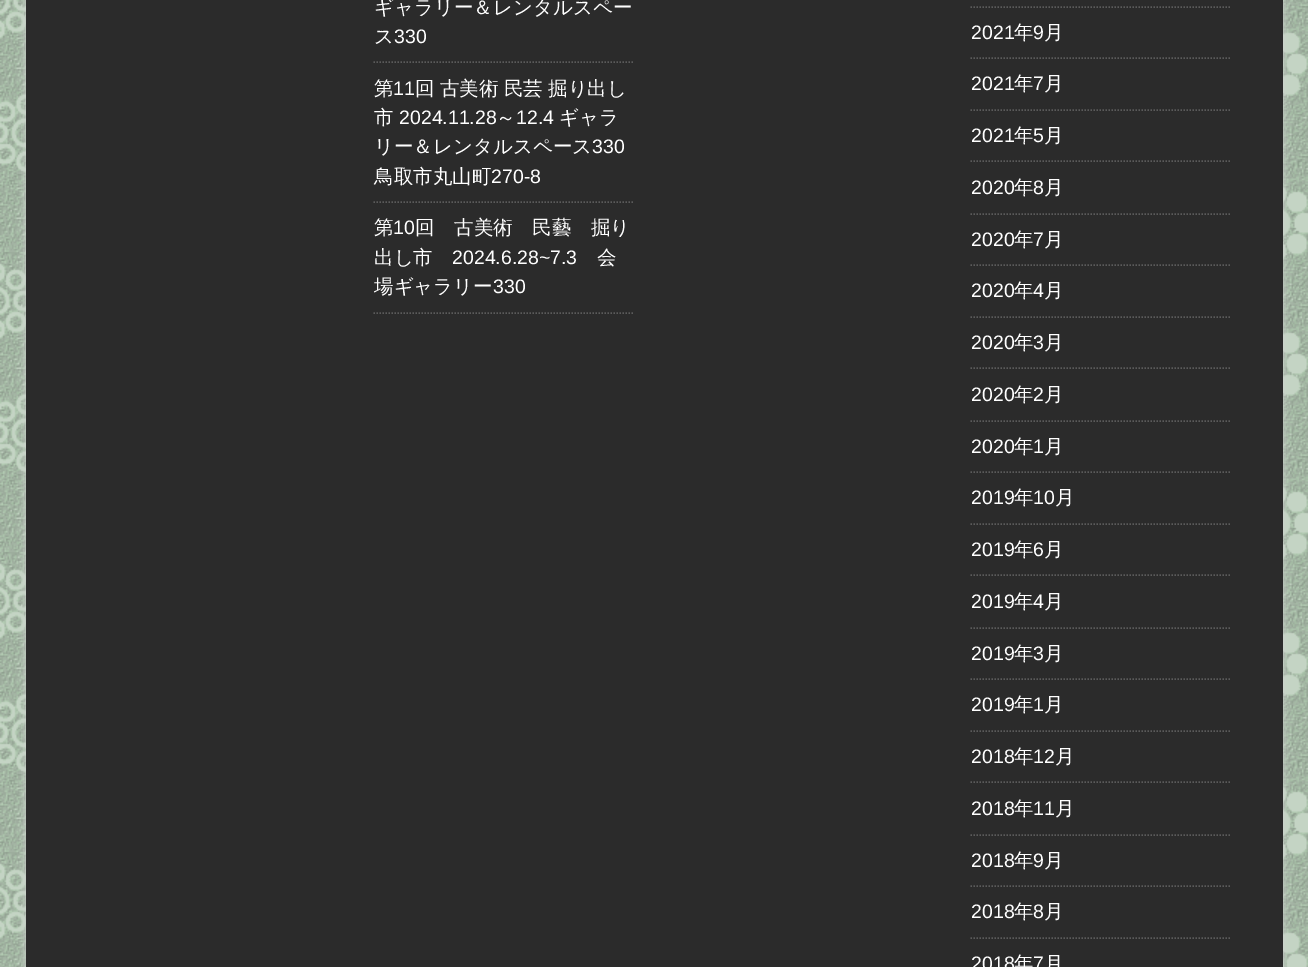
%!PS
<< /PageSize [1308 967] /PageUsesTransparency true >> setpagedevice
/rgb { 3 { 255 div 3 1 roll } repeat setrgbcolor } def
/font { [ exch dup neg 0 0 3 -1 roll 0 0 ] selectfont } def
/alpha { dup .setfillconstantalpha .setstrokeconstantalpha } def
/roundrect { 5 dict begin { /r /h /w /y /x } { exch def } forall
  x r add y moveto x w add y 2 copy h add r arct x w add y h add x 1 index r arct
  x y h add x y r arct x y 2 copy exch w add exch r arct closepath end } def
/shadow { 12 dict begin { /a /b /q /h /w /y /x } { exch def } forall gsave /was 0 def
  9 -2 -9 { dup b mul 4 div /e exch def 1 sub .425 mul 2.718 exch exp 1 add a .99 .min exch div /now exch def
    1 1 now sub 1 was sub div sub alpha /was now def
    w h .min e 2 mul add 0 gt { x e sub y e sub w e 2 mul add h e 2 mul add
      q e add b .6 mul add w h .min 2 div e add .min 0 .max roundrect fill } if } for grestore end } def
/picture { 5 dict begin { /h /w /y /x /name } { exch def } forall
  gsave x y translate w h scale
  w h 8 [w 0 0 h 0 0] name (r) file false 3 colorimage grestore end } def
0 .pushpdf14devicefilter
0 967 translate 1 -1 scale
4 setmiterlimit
255 255 255 rgb
0 0 1308 967 rectfill
(img/1.rgb) 0 0 1308 967 picture
208 208 208 rgb
26 -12 1257 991 0 4 1 shadow
43 43 43 rgb
26 0 1257 967 rectfill
91 91 91 rgb
1.5 setlinewidth
[1.5 1.5] 0 setdash
373.5 62 moveto 633 62 lineto stroke
373.5 202 moveto 633 202 lineto stroke
373.5 313 moveto 633 313 lineto stroke
970.5 7 moveto 1230 7 lineto stroke
970.5 58 moveto 1230 58 lineto stroke
970.5 110 moveto 1230 110 lineto stroke
970.5 161 moveto 1230 161 lineto stroke
970.5 214 moveto 1230 214 lineto stroke
970.5 265 moveto 1230 265 lineto stroke
970.5 317 moveto 1230 317 lineto stroke
970.5 368 moveto 1230 368 lineto stroke
970.5 421 moveto 1230 421 lineto stroke
970.5 472 moveto 1230 472 lineto stroke
970.5 524 moveto 1230 524 lineto stroke
970.5 575 moveto 1230 575 lineto stroke
970.5 628 moveto 1230 628 lineto stroke
970.5 679 moveto 1230 679 lineto stroke
970.5 731 moveto 1230 731 lineto stroke
970.5 782 moveto 1230 782 lineto stroke
970.5 835 moveto 1230 835 lineto stroke
970.5 886 moveto 1230 886 lineto stroke
970.5 938 moveto 1230 938 lineto stroke
/WenQuanYiZenHei-Medium 19.5 font
255 255 255 rgb
374 14 moveto (ギャラリー＆レンタルスペー) show
374 43 moveto (ス) show
/LiberationSans-Regular 19.5 font
394 43 moveto (330) show
/WenQuanYiZenHei-Medium 19.5 font
374 95 moveto (第) show
/LiberationSans-Regular 19.5 font
393 95 moveto (11) show
/WenQuanYiZenHei-Medium 19.5 font
415 95 moveto -0.5 0 32 (回 古美術 民芸 掘り出し) widthshow
374 124 moveto (市) show
/LiberationSans-Regular 19.5 font
399 124 moveto (2024.11.28) show
/WenQuanYiZenHei-Medium 19.5 font
496 124 moveto (～) show
/LiberationSans-Regular 19.5 font
516 124 moveto (12.4) show
/WenQuanYiZenHei-Medium 19.5 font
559 124 moveto (ギャラ) show
374 153 moveto (リー＆レンタルスペース) show
/LiberationSans-Regular 19.5 font
592 153 moveto (330) show
/WenQuanYiZenHei-Medium 19.5 font
374 183 moveto (鳥取市丸山町) show
/LiberationSans-Regular 19.5 font
491 183 moveto (270-8) show
/WenQuanYiZenHei-Medium 19.5 font
374 234 moveto (第) show
/LiberationSans-Regular 19.5 font
393 234 moveto (10) show
/WenQuanYiZenHei-Medium 19.5 font
415 234 moveto (回　古美術　民藝　掘り) show
374 264 moveto (出し市) show
/LiberationSans-Regular 19.5 font
452 264 moveto (2024.6.28~7.3) show
/WenQuanYiZenHei-Medium 19.5 font
597 264 moveto (会) show
374 293 moveto (場ギャラリー) show
/LiberationSans-Regular 19.5 font
493 293 moveto (330) show
971 39 moveto (2021) show
/WenQuanYiZenHei-Medium 19.5 font
1014 39 moveto (年) show
/LiberationSans-Regular 19.5 font
1033 39 moveto (9) show
/WenQuanYiZenHei-Medium 19.5 font
1044 39 moveto (月) show
/LiberationSans-Regular 19.5 font
971 90 moveto (2021) show
/WenQuanYiZenHei-Medium 19.5 font
1014 90 moveto (年) show
/LiberationSans-Regular 19.5 font
1033 90 moveto (7) show
/WenQuanYiZenHei-Medium 19.5 font
1044 90 moveto (月) show
/LiberationSans-Regular 19.5 font
971 142 moveto (2021) show
/WenQuanYiZenHei-Medium 19.5 font
1014 142 moveto (年) show
/LiberationSans-Regular 19.5 font
1033 142 moveto (5) show
/WenQuanYiZenHei-Medium 19.5 font
1044 142 moveto (月) show
/LiberationSans-Regular 19.5 font
971 194 moveto (2020) show
/WenQuanYiZenHei-Medium 19.5 font
1014 194 moveto (年) show
/LiberationSans-Regular 19.5 font
1033 194 moveto (8) show
/WenQuanYiZenHei-Medium 19.5 font
1044 194 moveto (月) show
/LiberationSans-Regular 19.5 font
971 246 moveto (2020) show
/WenQuanYiZenHei-Medium 19.5 font
1014 246 moveto (年) show
/LiberationSans-Regular 19.5 font
1033 246 moveto (7) show
/WenQuanYiZenHei-Medium 19.5 font
1044 246 moveto (月) show
/LiberationSans-Regular 19.5 font
971 297 moveto (2020) show
/WenQuanYiZenHei-Medium 19.5 font
1014 297 moveto (年) show
/LiberationSans-Regular 19.5 font
1033 297 moveto (4) show
/WenQuanYiZenHei-Medium 19.5 font
1044 297 moveto (月) show
/LiberationSans-Regular 19.5 font
971 349 moveto (2020) show
/WenQuanYiZenHei-Medium 19.5 font
1014 349 moveto (年) show
/LiberationSans-Regular 19.5 font
1033 349 moveto (3) show
/WenQuanYiZenHei-Medium 19.5 font
1044 349 moveto (月) show
/LiberationSans-Regular 19.5 font
971 401 moveto (2020) show
/WenQuanYiZenHei-Medium 19.5 font
1014 401 moveto (年) show
/LiberationSans-Regular 19.5 font
1033 401 moveto (2) show
/WenQuanYiZenHei-Medium 19.5 font
1044 401 moveto (月) show
/LiberationSans-Regular 19.5 font
971 453 moveto (2020) show
/WenQuanYiZenHei-Medium 19.5 font
1014 453 moveto (年) show
/LiberationSans-Regular 19.5 font
1033 453 moveto (1) show
/WenQuanYiZenHei-Medium 19.5 font
1044 453 moveto (月) show
/LiberationSans-Regular 19.5 font
971 504 moveto (2019) show
/WenQuanYiZenHei-Medium 19.5 font
1014 504 moveto (年) show
/LiberationSans-Regular 19.5 font
1033 504 moveto (10) show
/WenQuanYiZenHei-Medium 19.5 font
1055 504 moveto (月) show
/LiberationSans-Regular 19.5 font
971 556 moveto (2019) show
/WenQuanYiZenHei-Medium 19.5 font
1014 556 moveto (年) show
/LiberationSans-Regular 19.5 font
1033 556 moveto (6) show
/WenQuanYiZenHei-Medium 19.5 font
1044 556 moveto (月) show
/LiberationSans-Regular 19.5 font
971 608 moveto (2019) show
/WenQuanYiZenHei-Medium 19.5 font
1014 608 moveto (年) show
/LiberationSans-Regular 19.5 font
1033 608 moveto (4) show
/WenQuanYiZenHei-Medium 19.5 font
1044 608 moveto (月) show
/LiberationSans-Regular 19.5 font
971 660 moveto (2019) show
/WenQuanYiZenHei-Medium 19.5 font
1014 660 moveto (年) show
/LiberationSans-Regular 19.5 font
1033 660 moveto (3) show
/WenQuanYiZenHei-Medium 19.5 font
1044 660 moveto (月) show
/LiberationSans-Regular 19.5 font
971 711 moveto (2019) show
/WenQuanYiZenHei-Medium 19.5 font
1014 711 moveto (年) show
/LiberationSans-Regular 19.5 font
1033 711 moveto (1) show
/WenQuanYiZenHei-Medium 19.5 font
1044 711 moveto (月) show
/LiberationSans-Regular 19.5 font
971 763 moveto (2018) show
/WenQuanYiZenHei-Medium 19.5 font
1014 763 moveto (年) show
/LiberationSans-Regular 19.5 font
1033 763 moveto (12) show
/WenQuanYiZenHei-Medium 19.5 font
1055 763 moveto (月) show
/LiberationSans-Regular 19.5 font
971 815 moveto (2018) show
/WenQuanYiZenHei-Medium 19.5 font
1014 815 moveto (年) show
/LiberationSans-Regular 19.5 font
1033 815 moveto (11) show
/WenQuanYiZenHei-Medium 19.5 font
1055 815 moveto (月) show
/LiberationSans-Regular 19.5 font
971 867 moveto (2018) show
/WenQuanYiZenHei-Medium 19.5 font
1014 867 moveto (年) show
/LiberationSans-Regular 19.5 font
1033 867 moveto (9) show
/WenQuanYiZenHei-Medium 19.5 font
1044 867 moveto (月) show
/LiberationSans-Regular 19.5 font
971 918 moveto (2018) show
/WenQuanYiZenHei-Medium 19.5 font
1014 918 moveto (年) show
/LiberationSans-Regular 19.5 font
1033 918 moveto (8) show
/WenQuanYiZenHei-Medium 19.5 font
1044 918 moveto (月) show
/LiberationSans-Regular 19.5 font
971 970 moveto (2018) show
/WenQuanYiZenHei-Medium 19.5 font
1014 970 moveto (年) show
/LiberationSans-Regular 19.5 font
1033 970 moveto (7) show
/WenQuanYiZenHei-Medium 19.5 font
1044 970 moveto (月) show
.poppdf14devicefilter showpage
